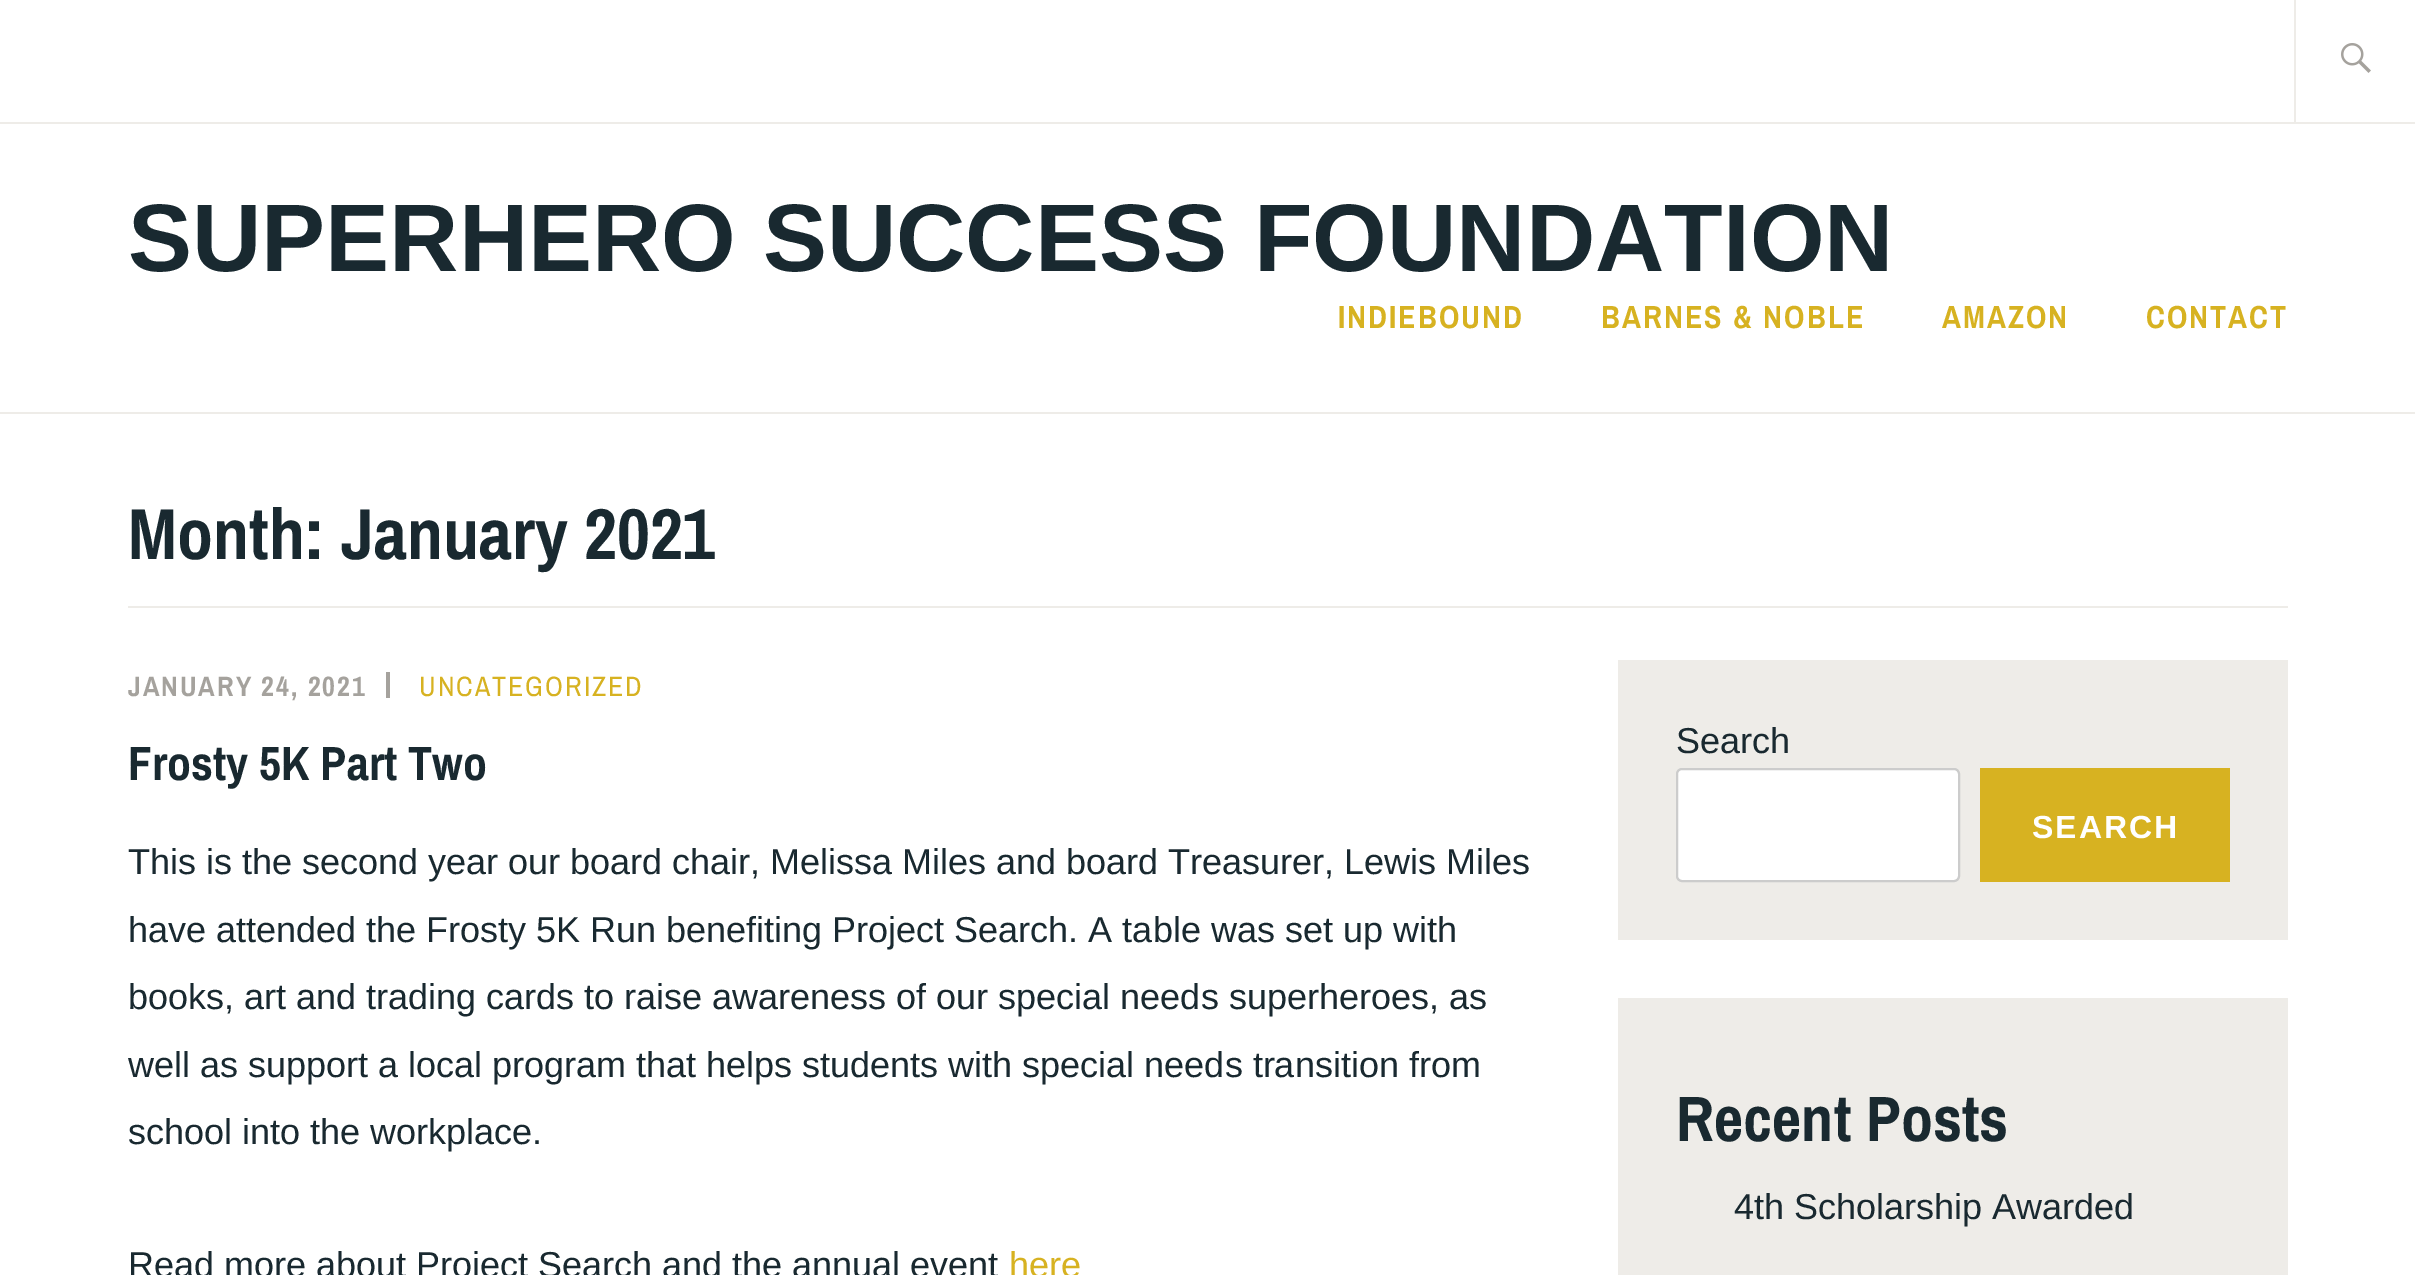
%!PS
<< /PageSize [2415 1275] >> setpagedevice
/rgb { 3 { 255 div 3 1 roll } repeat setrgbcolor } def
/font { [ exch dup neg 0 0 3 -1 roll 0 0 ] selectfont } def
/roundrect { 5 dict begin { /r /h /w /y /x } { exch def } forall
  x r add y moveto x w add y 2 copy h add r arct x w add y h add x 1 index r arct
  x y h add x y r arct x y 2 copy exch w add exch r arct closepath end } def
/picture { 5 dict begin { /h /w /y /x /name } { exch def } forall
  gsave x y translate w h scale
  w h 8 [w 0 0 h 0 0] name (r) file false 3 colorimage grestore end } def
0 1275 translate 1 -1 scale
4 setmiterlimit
255 255 255 rgb
0 0 2415 1275 rectfill
[
  [0 412 2415 2 238 236 232]
  [0 122 2415 2 238 236 232]
  [2294 0 2 122 238 236 232]
] { aload pop rgb rectfill } forall
(img/1.rgb) 2341 43 30 30 picture
[
  [128 606 2160 2 238 236 232]
  [386 672 4 26 165 162 157]
  [1618 660 670 280 238 236 232]
] { aload pop rgb rectfill } forall
255 255 255 rgb
1677 769 282 112 5 roundrect gsave fill grestore
204 204 204 rgb
2 setlinewidth
stroke
215 178 33 rgb
1980 768 250 114 rectfill
238 236 232 rgb
1618 998 670 277 rectfill
/LiberationSans-Bold 96 font
25 41 48 rgb
128 271 moveto (SUPERHERO SUCCESS FOUNDATION) show
/ArchivoNarrow-Bold 32 font
215 178 33 rgb
1338 328 moveto 2 0 (INDIEBOUND) ashow
1601 328 moveto 2 0 (BARNES & NOBLE) ashow
1942 328 moveto 2 0 (AMAZON) ashow
2146 328 moveto 2 0 (CONTACT) ashow
/ArchivoNarrow-Bold 72 font
25 41 48 rgb
128 559 moveto (Month: January 2021) show
/ArchivoNarrow-Bold 28 font
165 162 157 rgb
128 696 moveto 2 0 (JANUARY 24, 2021) ashow
/ArchivoNarrow-Regular 28 font
215 178 33 rgb
419 696 moveto 2 0 (UNCATEGORIZED) ashow
/ArchivoNarrow-Bold 48 font
25 41 48 rgb
128 780 moveto (Frosty 5K Part Two) show
/LiberationSans-Regular 36 font
[
  [(This is the second year our board chair, Melissa Miles and board Treasurer, Lewis Miles) 128 874]
  [(have attended the Frosty 5K Run benefiting Project Search. A table was set up with) 128 942]
  [(books, art and trading cards to raise awareness of our special needs superheroes, as) 128 1009]
  [(well as support a local program that helps students with special needs transition from) 128 1077]
  [(school into the workplace.) 128 1144]
  [(Read more about Project Search and the annual event) 128 1277]
] { aload pop moveto show } forall
215 178 33 rgb
1009 1277 moveto (here) show
25 41 48 rgb
1676 753 moveto (Search) show
/LiberationSans-Bold 32 font
255 255 255 rgb
2032 838 moveto 2 0 (SEARCH) ashow
/ArchivoNarrow-Bold 64 font
25 41 48 rgb
1676 1141 moveto (Recent Posts) show
/LiberationSans-Regular 36 font
1734 1219 moveto (4th Scholarship Awarded) show
showpage
